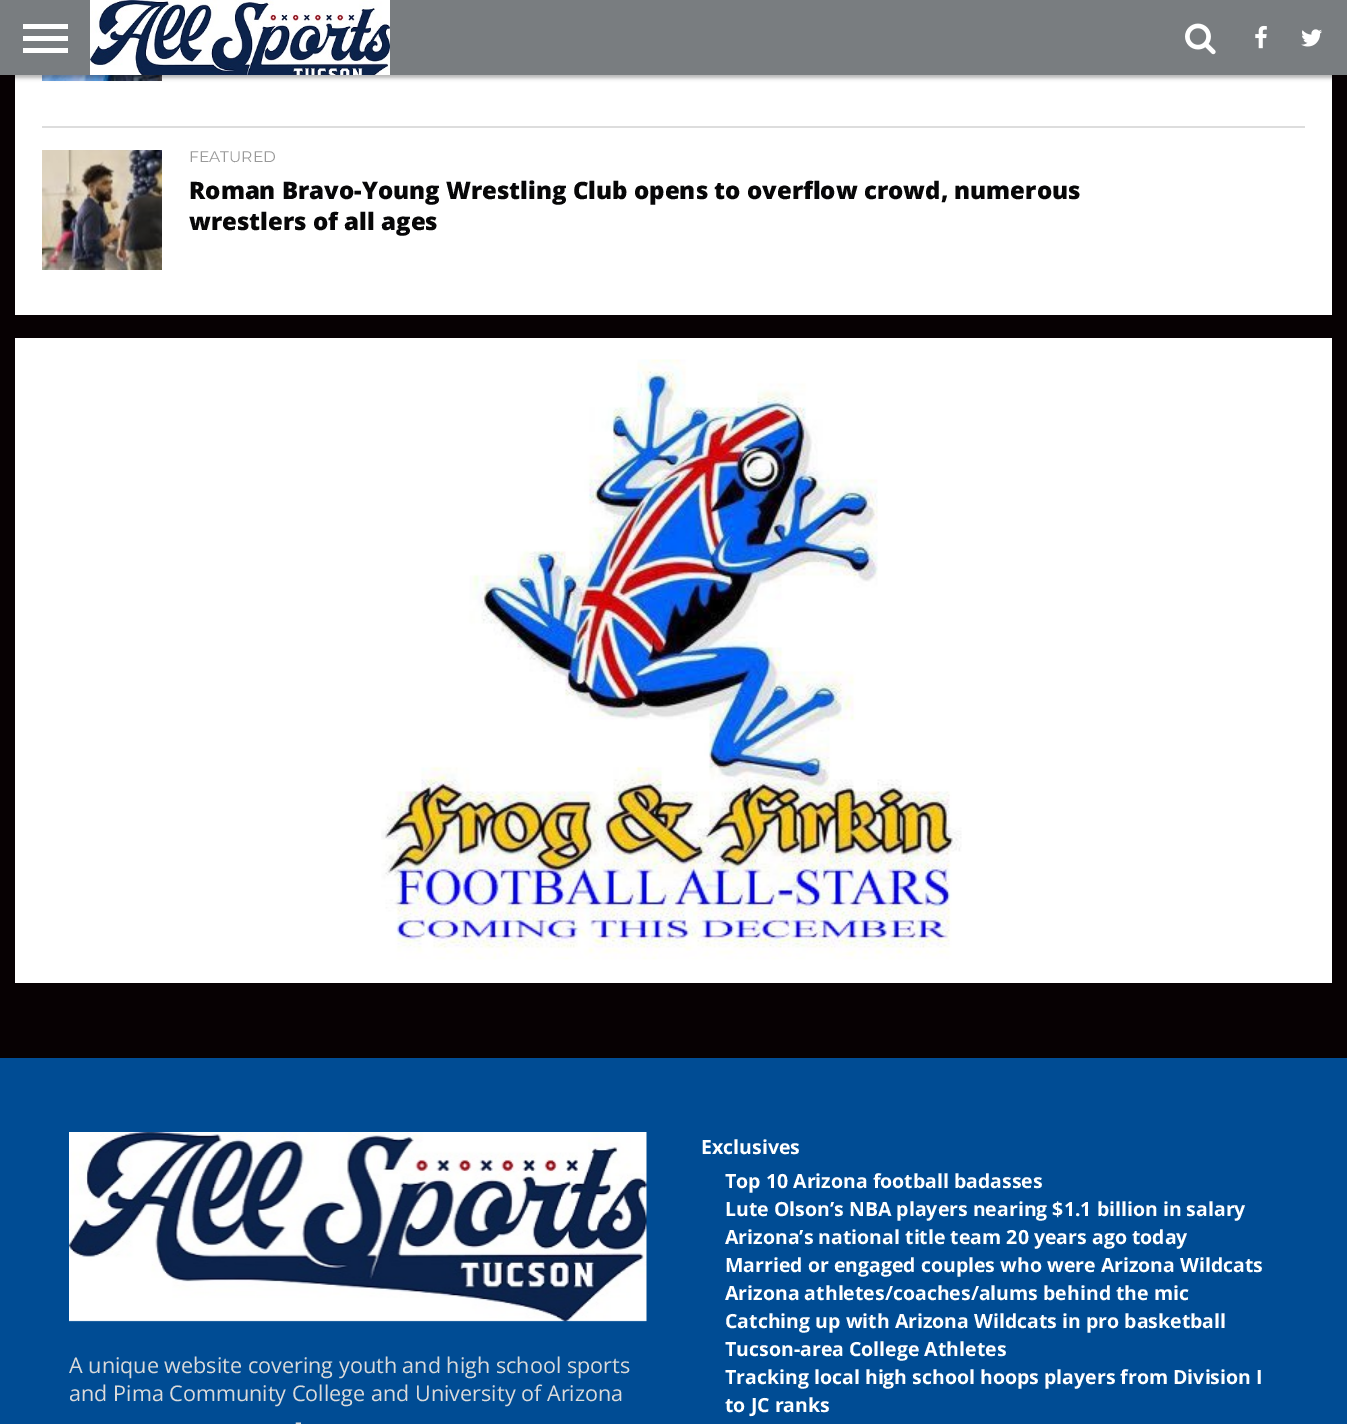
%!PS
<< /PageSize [1347 1424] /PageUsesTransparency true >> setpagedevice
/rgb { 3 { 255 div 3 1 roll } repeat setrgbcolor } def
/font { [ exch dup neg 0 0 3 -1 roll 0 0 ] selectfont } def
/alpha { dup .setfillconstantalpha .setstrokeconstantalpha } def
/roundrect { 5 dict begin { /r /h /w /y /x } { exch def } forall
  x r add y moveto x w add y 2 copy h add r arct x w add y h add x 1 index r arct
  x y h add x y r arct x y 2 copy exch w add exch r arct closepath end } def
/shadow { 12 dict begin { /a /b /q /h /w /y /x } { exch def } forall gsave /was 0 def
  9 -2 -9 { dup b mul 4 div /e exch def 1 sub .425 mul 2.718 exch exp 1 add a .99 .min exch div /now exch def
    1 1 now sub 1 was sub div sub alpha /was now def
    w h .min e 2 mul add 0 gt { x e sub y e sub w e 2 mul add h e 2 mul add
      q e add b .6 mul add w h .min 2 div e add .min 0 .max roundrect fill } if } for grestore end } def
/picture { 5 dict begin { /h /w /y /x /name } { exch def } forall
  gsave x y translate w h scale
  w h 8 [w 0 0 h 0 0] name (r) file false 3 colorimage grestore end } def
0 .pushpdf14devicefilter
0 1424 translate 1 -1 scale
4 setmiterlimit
7 1 3 rgb
0 0 1347 1424 rectfill
255 255 255 rgb
15 75 1317 240 rectfill
(img/5.rgb) 42 75 120 6 picture
0 0 0 rgb
0 3 1347 75 0 2 0.3 shadow
[
  [0 0 1347 75 121 125 128]
  [23 24 45 5 255 255 255]
  [23 36 45 5 255 255 255]
  [23 48 45 5 255 255 255]
] { aload pop rgb rectfill } forall
(img/1.rgb) 90 0 300 75 picture
(img/2.rgb) 1185 23 31 32 picture
(img/3.rgb) 1255 25 12 24 picture
(img/4.rgb) 1301 29 21 18 picture
221 221 221 rgb
42 126 1263 2 rectfill
(img/6.rgb) 42 150 120 120 picture
255 255 255 rgb
15 338 1317 645 rectfill
(img/7.rgb) 381 359 581 601 picture
0 76 148 rgb
0 1058 1347 366 rectfill
(img/8.rgb) 69 1132 578 190 picture
/Montserrat-Regular 15.5 font
153 153 153 rgb
189 162 moveto (FEATURED) show
/OpenSans-ExtraBold 24 font
7 7 8 rgb
189 199 moveto (Roman Bravo-Young Wrestling Club opens to overflow crowd, numerous) show
189 230 moveto (wrestlers of all ages) show
/OpenSans-Regular 21.6 font
218 218 218 rgb
[
  [(A unique website covering youth and high school sports) 69 1373]
  [(and Pima Community College and University of Arizona) 69 1401]
  [(-) 295 1429]
] { aload pop moveto show } forall
/OpenSans-Bold 19.5 font
255 255 255 rgb
[
  [(Exclusives) 701 1154]
  [(Top 10 Arizona football badasses) 725 1188]
  [(Lute Olson’s NBA players nearing $1.1 billion in salary) 725 1216]
  [(Arizona’s national title team 20 years ago today) 725 1244]
  [(Married or engaged couples who were Arizona Wildcats) 725 1272]
  [(Arizona athletes/coaches/alums behind the mic) 725 1300]
  [(Catching up with Arizona Wildcats in pro basketball) 725 1328]
  [(Tucson-area College Athletes) 725 1356]
  [(Tracking local high school hoops players from Division I) 725 1384]
  [(to JC ranks) 725 1412]
] { aload pop moveto show } forall
.poppdf14devicefilter showpage
